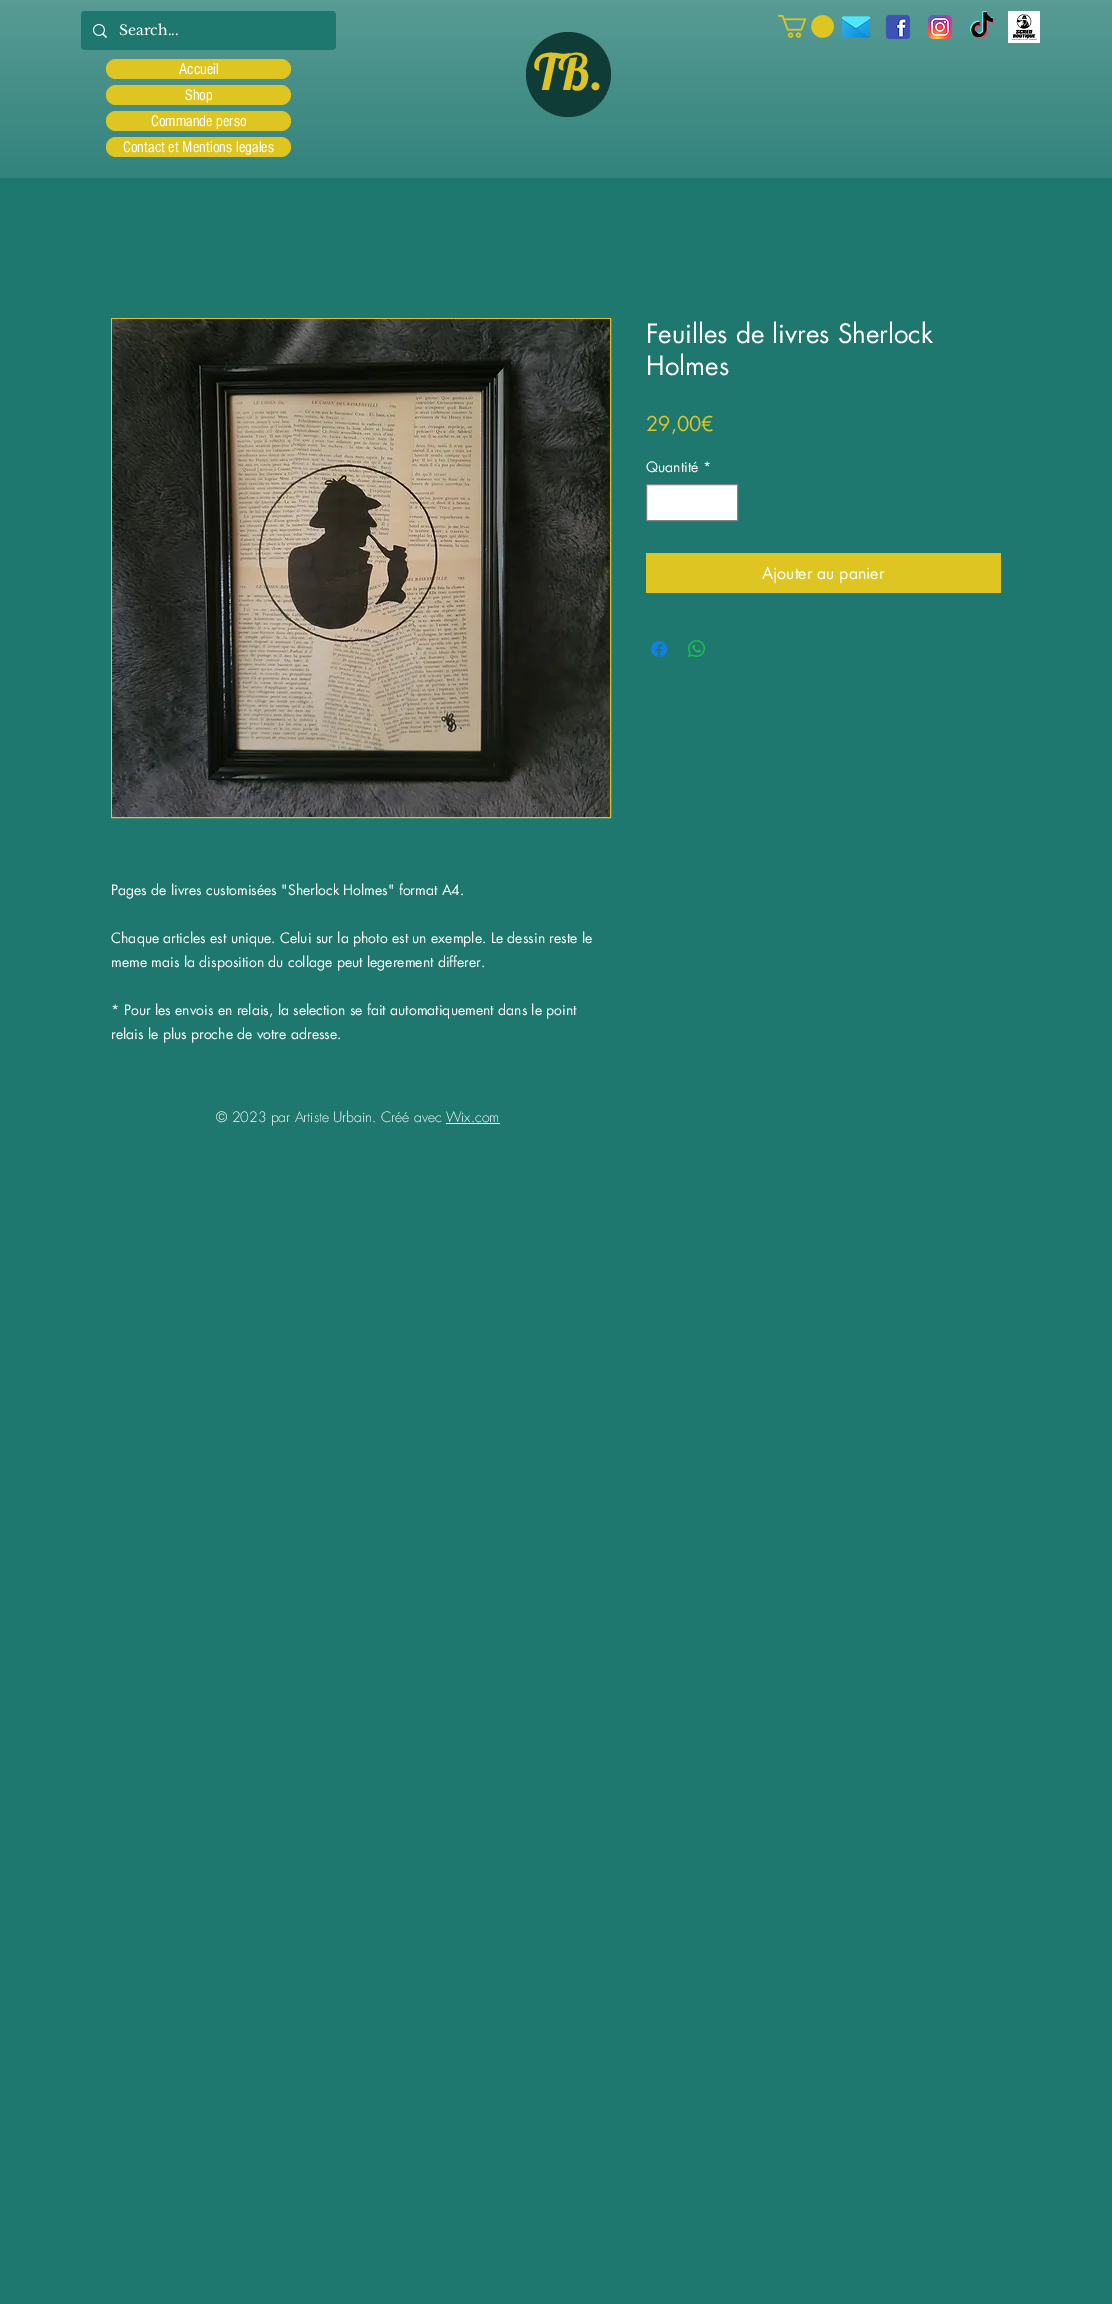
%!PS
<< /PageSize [1112 2304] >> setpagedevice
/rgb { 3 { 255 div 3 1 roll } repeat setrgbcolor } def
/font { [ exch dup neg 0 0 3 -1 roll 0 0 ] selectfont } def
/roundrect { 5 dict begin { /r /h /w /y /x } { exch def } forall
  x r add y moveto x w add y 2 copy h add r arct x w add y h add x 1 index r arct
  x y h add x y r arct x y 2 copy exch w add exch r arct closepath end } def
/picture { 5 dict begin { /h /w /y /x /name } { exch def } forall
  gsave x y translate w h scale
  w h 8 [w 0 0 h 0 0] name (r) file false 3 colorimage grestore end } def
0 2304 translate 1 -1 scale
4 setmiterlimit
31 120 112 rgb
0 0 1112 2304 rectfill
(img/1.rgb) 0 0 1112 178 picture
81 11 255 39 4 roundrect fill
(img/2.rgb) 93 24 14 14 picture
(img/3.rgb) 778 15 56 23 picture
(img/4.rgb) 841 16 30 22 picture
(img/5.rgb) 885 14 26 26 picture
(img/6.rgb) 927 14 26 26 picture
(img/7.rgb) 970 11 25 28 picture
(img/8.rgb) 1008 11 32 32 picture
16 60 56 rgb
611 74 moveto 611 98 592 117 568 117 curveto 545 117 526 98 526 74 curveto 526 51 545 32 568 32 curveto 592 32 611 51 611 74 curveto closepath fill
222 197 33 rgb
106 59 185 20 10 roundrect fill
106 85 185 20 10 roundrect fill
106 111 185 20 10 roundrect fill
106 137 185 20 10 roundrect fill
255 255 255 rgb
646.5 484.5 moveto 737.5 484.5 lineto 737.5 520.5 lineto 646.5 520.5 lineto closepath gsave fill grestore
130 130 130 rgb
stroke
222 197 33 rgb
646 553 355 40 rectfill
(img/9.rgb) 651 641 16 16 picture
(img/10.rgb) 688 640 17 17 picture
222 195 40 rgb
111.5 318.5 499 499 rectstroke
(img/11.rgb) 112 319 498 498 picture
255 255 255 rgb
446 1123 54 1 rectfill
/LibreBaskerville-Regular 14 font
119 35 moveto (Search...) show
/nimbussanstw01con-Regular 16 font
[
  [(Accueil) 179 74]
  [(Shop) 185 100]
  [(Commande perso) 151 126]
  [(Contact et Mentions legales) 123 152]
] { aload pop moveto show } forall
/Lobster-Regular 50 font
222 195 40 rgb
534 90 moveto (TB.) show
/futura-Regular 26 font
255 255 255 rgb
646 343 moveto (Feuilles de livres Sherlock) show
646 375 moveto (Holmes) show
/futura-Regular 20 font
222 197 33 rgb
646 431 moveto (29,00€) show
/futura-Regular 14 font
255 255 255 rgb
646 472 moveto (Quantité *) show
/futura-Regular 16 font
762 579 moveto (Ajouter au panier) show
/futura-Regular 14 font
[
  [(Pages de livres customisées "Sherlock Holmes" format A4.) 111 895]
  [(Chaque articles est unique. Celui sur la photo est un exemple. Le dessin reste le) 111 943]
  [(meme mais la disposition du collage peut legerement differer.) 111 967]
  [(* Pour les envois en relais, la selection se fait automatiquement dans le point) 111 1015]
  [(relais le plus proche de votre adresse.) 111 1039]
] { aload pop moveto show } forall
/futura-Light 14 font
216 1122 moveto (© 2023 par Artiste Urbain. Créé avec Wix.com) show
showpage
